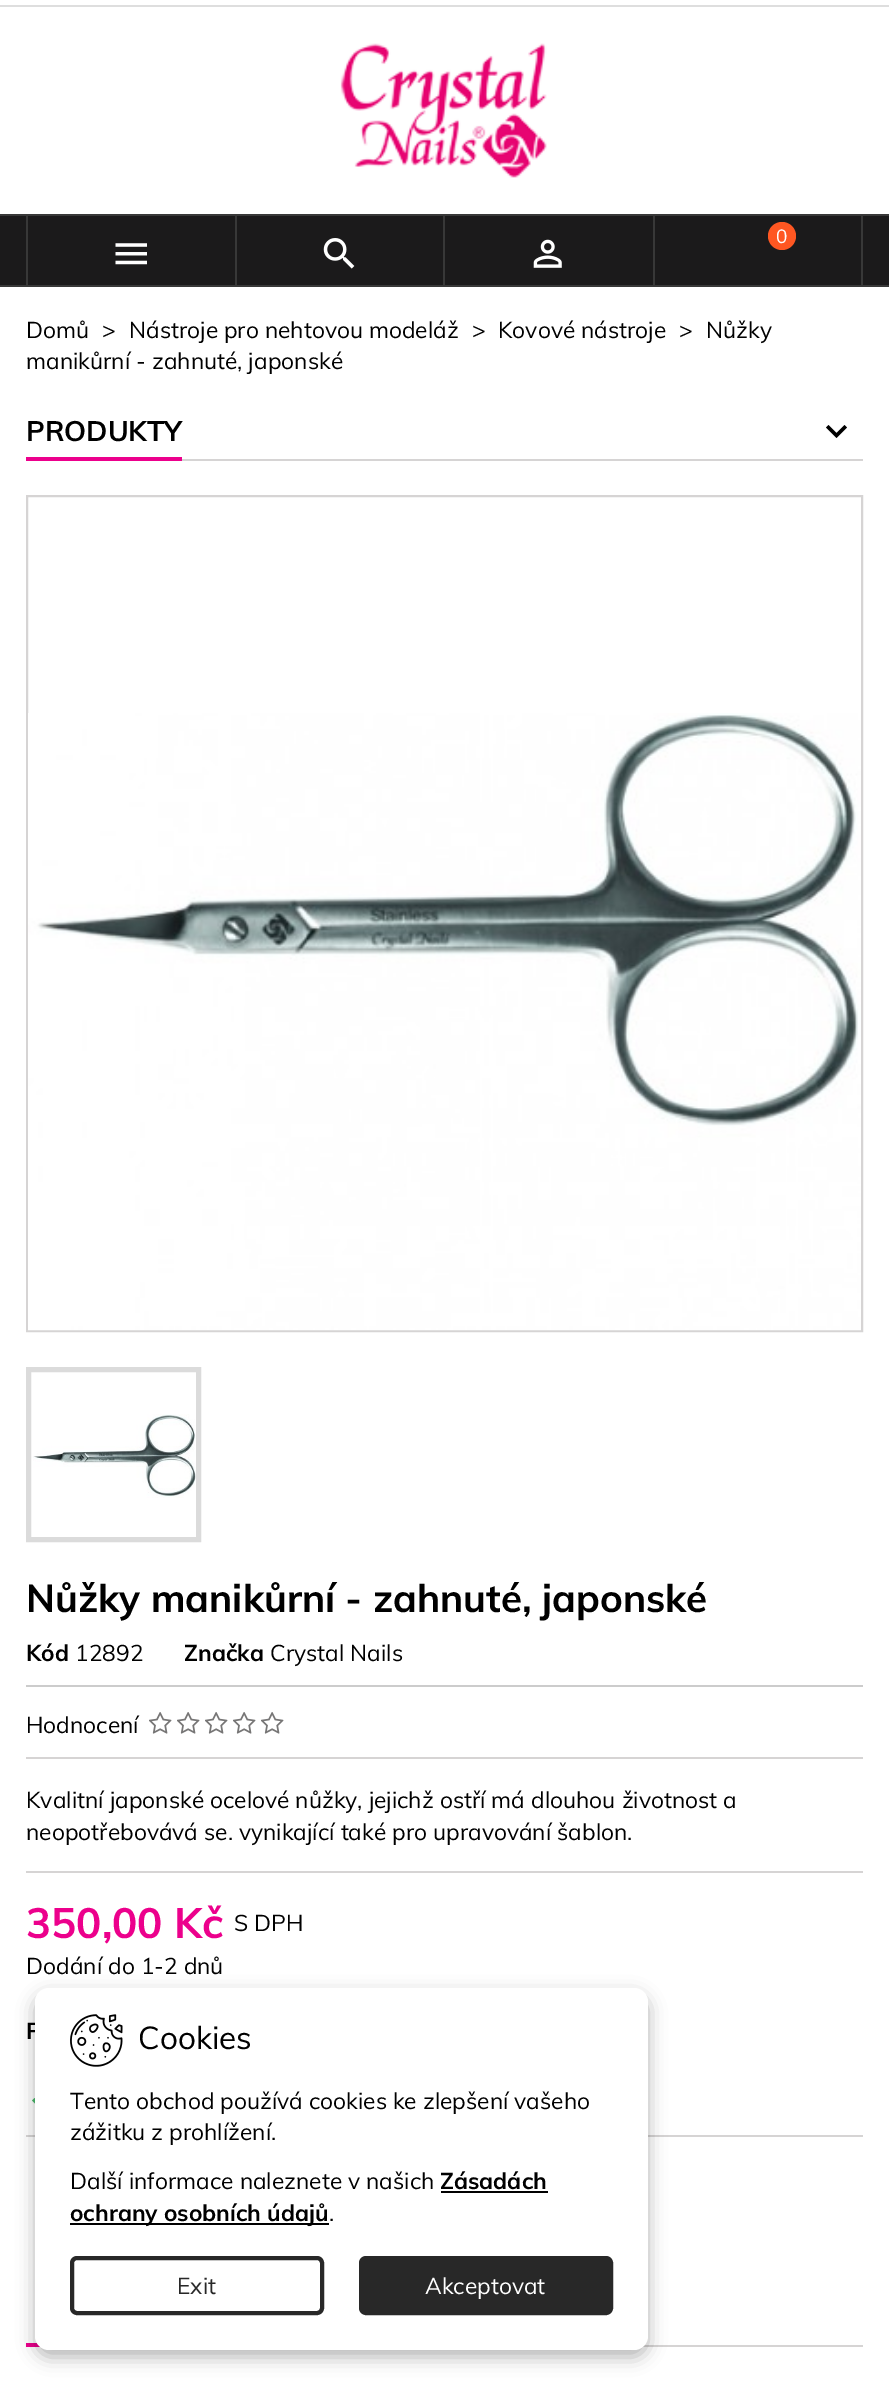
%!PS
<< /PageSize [889 2385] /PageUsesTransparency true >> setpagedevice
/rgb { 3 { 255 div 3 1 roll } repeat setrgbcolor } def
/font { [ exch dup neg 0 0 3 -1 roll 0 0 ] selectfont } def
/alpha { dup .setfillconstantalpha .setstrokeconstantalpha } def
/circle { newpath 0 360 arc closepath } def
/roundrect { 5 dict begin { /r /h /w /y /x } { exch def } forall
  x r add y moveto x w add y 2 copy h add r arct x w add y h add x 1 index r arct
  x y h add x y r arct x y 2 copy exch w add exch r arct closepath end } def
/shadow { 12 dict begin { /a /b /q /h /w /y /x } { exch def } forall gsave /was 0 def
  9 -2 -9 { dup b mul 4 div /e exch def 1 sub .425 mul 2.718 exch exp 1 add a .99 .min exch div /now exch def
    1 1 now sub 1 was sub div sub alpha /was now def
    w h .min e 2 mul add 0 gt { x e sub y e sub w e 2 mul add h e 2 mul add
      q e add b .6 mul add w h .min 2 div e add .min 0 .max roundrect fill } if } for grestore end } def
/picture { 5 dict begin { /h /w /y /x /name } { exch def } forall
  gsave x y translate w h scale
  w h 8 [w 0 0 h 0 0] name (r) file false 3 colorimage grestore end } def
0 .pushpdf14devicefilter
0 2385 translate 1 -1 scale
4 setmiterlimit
255 255 255 rgb
0 0 889 2385 rectfill
222 222 222 rgb
0 5 889 2 rectfill
(img/1.rgb) 340 43 207 135 picture
[
  [0 216 889 69 27 26 27]
  [0 214 889 2 56 56 56]
  [0 285 889 2 56 56 56]
  [235 215 2 70 56 56 56]
  [26 215 2 70 56 56 56]
] { aload pop rgb rectfill } forall
(img/2.rgb) 115 243 32 22 picture
443 215 2 70 rectfill
(img/3.rgb) 323 238 32 31 picture
653 215 2 70 rectfill
(img/4.rgb) 533 239 29 29 picture
861 215 2 70 rectfill
255 87 34 rgb
782 236 14 circle fill
214 212 212 rgb
182 459 681 2 rectfill
236 0 140 rgb
26 457 156 4 rectfill
0 0 0 rgb
828.5 425 moveto 836.5 433 lineto 844.5 425 lineto 847 427.5 lineto 836.5 438 lineto 826 427.5 lineto closepath fill
214 212 212 rgb
2 setlinewidth
27 496 835 835 rectstroke
(img/5.rgb) 28 713 833 618 picture
219 219 219 rgb
5 setlinewidth
28.5 1369.5 170 170 rectstroke
(img/6.rgb) 33 1414 163 84 picture
204 204 204 rgb
26 1685 837 2 rectfill
(img/7.rgb) 149 1712 23 22 picture
(img/7.rgb) 177 1712 23 22 picture
(img/7.rgb) 205 1712 23 22 picture
(img/7.rgb) 233 1712 23 22 picture
(img/7.rgb) 261 1712 23 22 picture
214 212 212 rgb
26 1757 837 2 rectfill
26 1871 837 2 rectfill
76 187 108 rgb
42 2105.5 moveto 60.5 2087 lineto 63 2089.5 lineto 42 2110.5 lineto 32 2100.5 lineto 34.5 2098 lineto closepath fill
[
  [26 2135 837 2 214 212 212]
  [642 2345 221 2 214 212 212]
  [26 2343 15 4 236 0 140]
] { aload pop rgb rectfill } forall
0 0 0 rgb
35 1995 613 362 14 9 0.3 shadow
/Muli-Regular 19 font
255 255 255 rgb
776 243 moveto (0) show
/Muli-Regular 22.75 font
0 0 0 rgb
[
  [(Domů) 26 338]
  [(>) 102 338]
  [(Nástroje pro nehtovou modeláž) 129 338]
  [(>) 472 338]
  [(Kovové nástroje) 498 338]
  [(>) 679 338]
  [(Nůžky) 706 338]
  [(manikůrní - zahnuté, japonské) 26 369]
] { aload pop moveto show } forall
/Muli-Bold 28 font
26 441 moveto (PRODUKTY) show
/Muli-Bold 38.5 font
26 1612 moveto (Nůžky manikůrní - zahnuté, japonské) show
/Muli-Bold 22.75 font
26 1661 moveto (Kód) show
/Muli-Regular 22.75 font
75 1661 moveto (12892) show
/Muli-Bold 22.75 font
184 1661 moveto (Značka) show
/Muli-Regular 22.75 font
[
  [(Crystal Nails) 270 1661]
  [(Hodnocení) 26 1733]
  [(Kvalitní japonské ocelové nůžky, jejichž ostří má dlouhou životnost a) 26 1808]
  [(neopotřebovává se. vynikající také pro upravování šablon.) 26 1840]
] { aload pop moveto show } forall
/Muli-Bold 42 font
236 0 140 rgb
26 1938 moveto (350,00 Kč) show
/Muli-Regular 22.75 font
0 0 0 rgb
234 1931 moveto (S DPH) show
26 1974 moveto (Dodání do 1-2 dnů) show
/Muli-Bold 22.75 font
26 2039 moveto (P) show
255 255 255 rgb
35 1988 613 362 14 roundrect fill
(img/8.rgb) 70 2014 53 53 picture
/Muli-Regular 31.5 font
0 0 0 rgb
138 2049 moveto (Cookies) show
/Muli-Regular 22.75 font
[
  [(Tento obchod používá cookies ke zlepšení vašeho) 70 2109]
  [(zážitku z prohlížení.) 70 2140]
  [(Další informace naleznete v našich) 70 2189]
] { aload pop moveto show } forall
/Muli-Bold 22.75 font
440 2189 moveto (Zásadách) show
441 2191 107 2 rectfill
70 2223 259 2 rectfill
70 2221 moveto (ochrany osobních údajů) show
/Muli-Regular 22.75 font
329 2221 moveto (.) show
40 40 40 rgb
4 setlinewidth
72 2258 250 55 5 roundrect stroke
177 2294 moveto (Exit) show
361 2258 250 55 5 roundrect gsave fill grestore
stroke
255 255 255 rgb
425 2294 moveto (Akceptovat) show
.poppdf14devicefilter showpage
